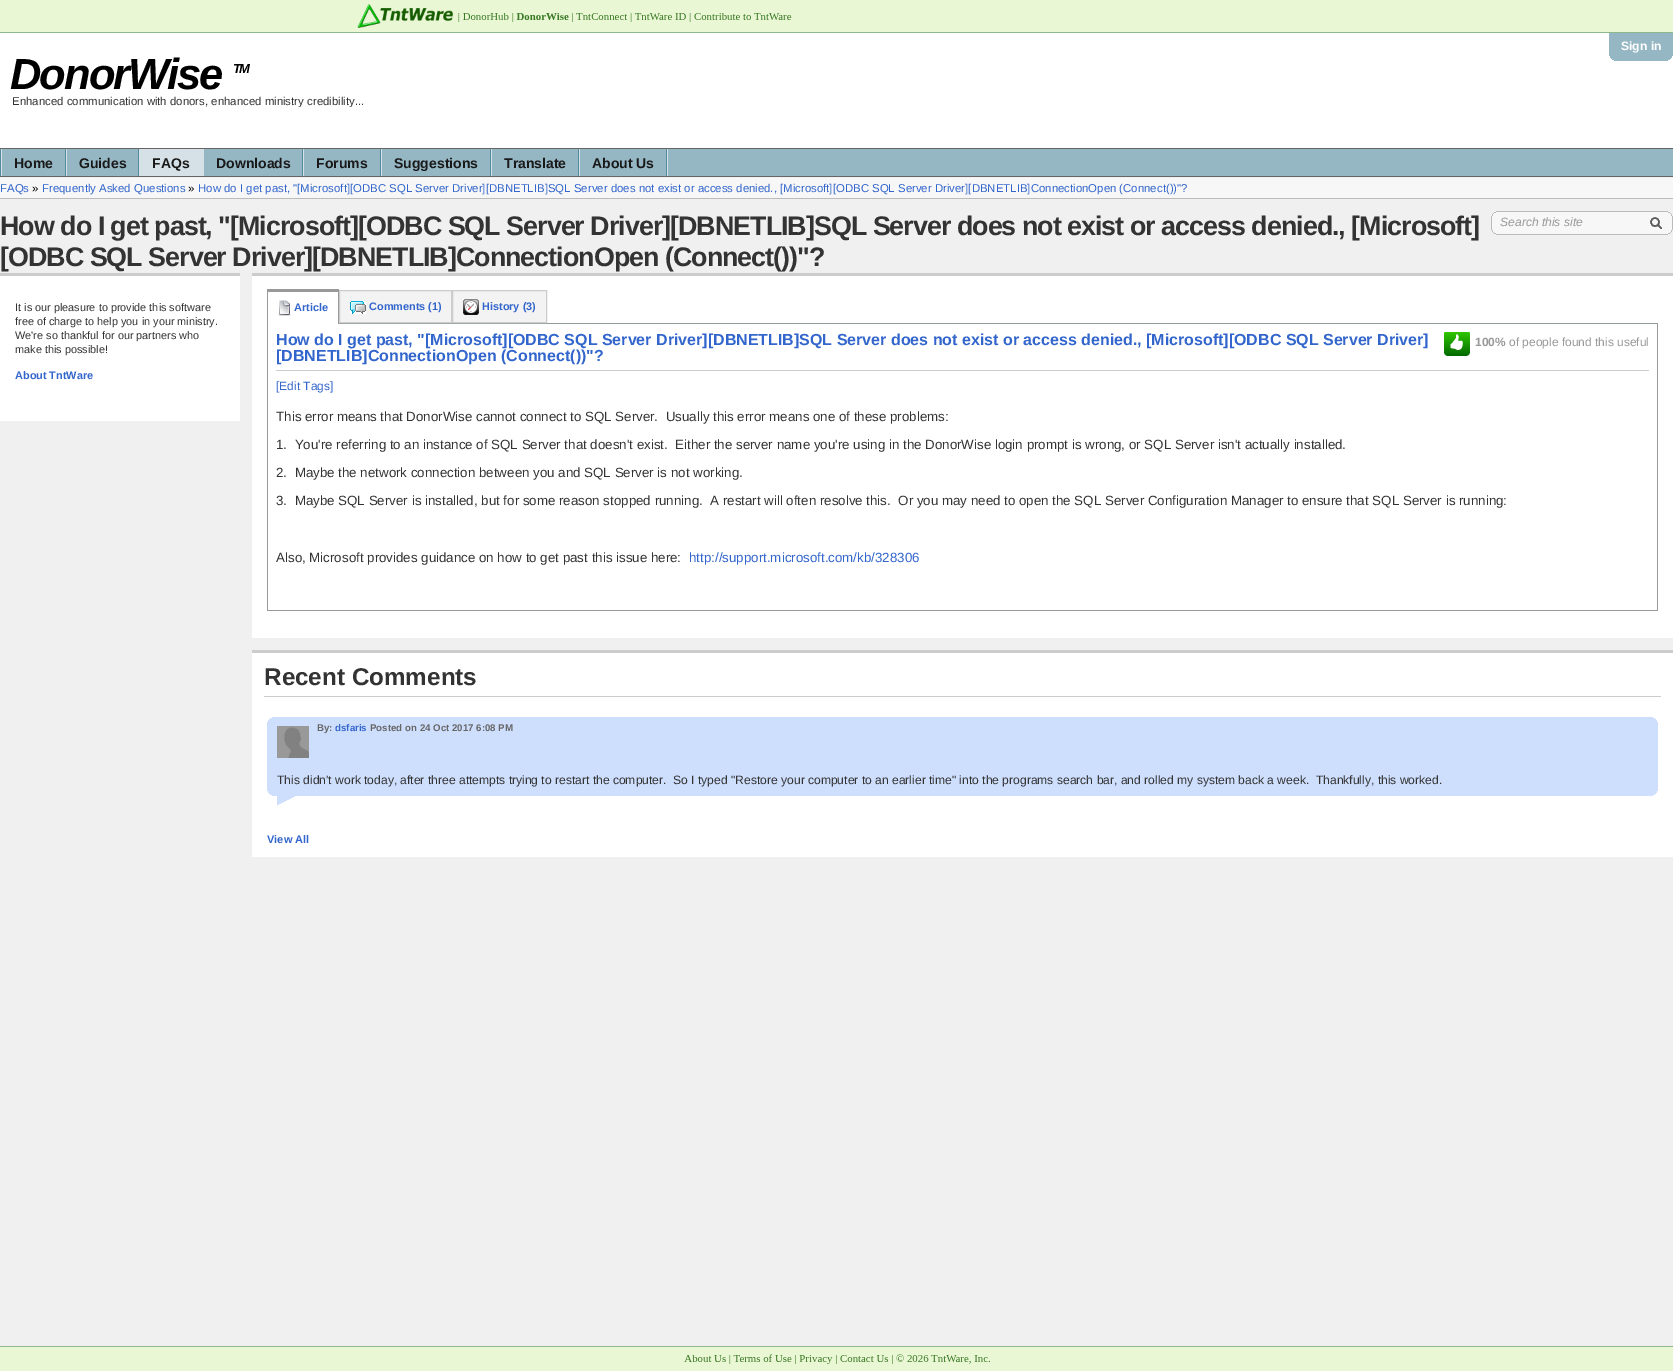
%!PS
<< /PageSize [1673 1371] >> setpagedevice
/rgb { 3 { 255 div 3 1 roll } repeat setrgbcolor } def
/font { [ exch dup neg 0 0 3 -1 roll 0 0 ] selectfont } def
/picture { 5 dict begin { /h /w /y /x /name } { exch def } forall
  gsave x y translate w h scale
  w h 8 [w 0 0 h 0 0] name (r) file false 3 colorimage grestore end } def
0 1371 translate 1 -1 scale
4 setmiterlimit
240 240 240 rgb
0 0 1673 1371 rectfill
(img/1.rgb) 0 0 1673 33 picture
[
  [0 33 1673 115 255 255 255]
  [1609 33 64 23 149 182 195]
  [1610 56 62 2 149 182 195]
  [1611 58 60 1 149 182 195]
  [1612 59 58 1 149 182 195]
  [1614 60 54 1 149 182 195]
  [2 149 1671 27 149 182 195]
  [0 148 1673 1 102 102 102]
  [0 176 1673 1 102 102 102]
  [0 149 1 27 85 139 159]
  [1 149 1 27 213 225 231]
  [66 149 1 27 213 225 231]
  [65 149 1 27 85 139 159]
  [139 149 1 27 213 225 231]
  [138 149 1 27 85 139 159]
  [203 149 1 27 213 225 231]
  [140 149 63 27 214 225 231]
  [303 149 1 27 213 225 231]
  [302 149 1 27 85 139 159]
  [381 149 1 27 213 225 231]
  [380 149 1 27 85 139 159]
  [491 149 1 27 213 225 231]
  [490 149 1 27 85 139 159]
  [579 149 1 27 213 225 231]
  [578 149 1 27 85 139 159]
  [667 149 1 27 213 225 231]
  [666 149 1 27 85 139 159]
  [0 178 1673 20 247 247 247]
  [0 198 1673 1 187 187 187]
  [1496 211 172 1 187 187 187]
  [1494 212 176 1 247 247 247]
  [1668 212 2 1 187 187 187]
  [1494 212 2 1 187 187 187]
  [1493 213 178 1 247 247 247]
  [1670 213 1 1 187 187 187]
  [1493 213 1 1 187 187 187]
  [1492 214 180 2 247 247 247]
  [1671 214 1 2 187 187 187]
  [1492 214 1 2 187 187 187]
  [1492 216 180 16 247 247 247]
  [1671 230 1 2 187 187 187]
  [1492 230 1 2 187 187 187]
  [1493 232 178 1 247 247 247]
  [1670 232 1 1 187 187 187]
  [1493 232 1 1 187 187 187]
  [1494 233 176 1 247 247 247]
  [1668 233 2 1 187 187 187]
  [1494 233 2 1 187 187 187]
  [1496 234 172 1 187 187 187]
  [1672 216 1 14 187 187 187]
  [1491 216 1 14 187 187 187]
] { aload pop rgb rectfill } forall
(img/2.rgb) 1650 217 12 12 picture
[
  [0 276 240 145 255 255 255]
  [0 273 240 3 204 204 204]
  [252 276 1421 362 255 255 255]
  [252 273 1421 3 204 204 204]
  [339 323 1319 1 145 155 156]
  [267 289 72 3 153 153 153]
  [338 289 1 35 153 153 153]
  [267 289 1 35 153 153 153]
] { aload pop rgb rectfill } forall
(img/3.rgb) 278 300 13 16 picture
243 243 243 rgb
339.5 290.5 moveto 451.5 290.5 lineto 451.5 322.5 lineto 339.5 322.5 lineto closepath gsave fill grestore
204 204 204 rgb
stroke
(img/4.rgb) 350 301 16 13 picture
243 243 243 rgb
452.5 290.5 moveto 546.5 290.5 lineto 546.5 322.5 lineto 452.5 322.5 lineto closepath gsave fill grestore
204 204 204 rgb
stroke
(img/5.rgb) 463 299 16 16 picture
[
  [1657 324 1 287 153 153 153]
  [267 610 1391 1 153 153 153]
  [267 324 1 287 153 153 153]
  [276 370 1373 1 204 204 204]
] { aload pop rgb rectfill } forall
(img/6.rgb) 1444 332 26 24 picture
[
  [252 653 1421 204 255 255 255]
  [252 650 1421 3 204 204 204]
  [264 696 1397 1 204 204 204]
  [272 717 1381 1 206 222 253]
  [270 718 1385 1 206 222 253]
  [269 719 1387 1 206 222 253]
  [268 720 1389 2 206 222 253]
  [267 722 1391 69 206 222 253]
] { aload pop rgb rectfill } forall
(img/7.rgb) 277 726 32 32 picture
[
  [268 791 1389 2 206 222 253]
  [269 793 1387 1 206 222 253]
  [270 794 1385 1 206 222 253]
  [272 795 1381 1 206 222 253]
  [277 796 18 1 206 222 253]
  [277 797 16 1 206 222 253]
  [277 798 14 1 206 222 253]
  [277 799 12 1 206 222 253]
  [277 800 10 1 206 222 253]
  [277 801 8 1 206 222 253]
  [277 802 6 1 206 222 253]
  [277 803 4 1 206 222 253]
  [277 804 2 1 206 222 253]
] { aload pop rgb rectfill } forall
(img/8.rgb) 0 1346 1673 25 picture
/LiberationSans-Bold 12.1 font
255 255 255 rgb
1621 50 moveto (Sign in) show
/LiberationSans-BoldItalic 43.5 font
0 0 0 rgb
10 89 moveto -2 0 (DonorWise) ashow
/LiberationSans-BoldItalic 13 font
233 73 moveto -2 0 (TM) ashow
gsave
0 33 364 74 rectclip
/LiberationSans-Regular 11.42 font
51 51 51 rgb
12 105 moveto (Enhanced communication with donors, enhanced ministry credibility...) show
grestore
/LiberationSans-Bold 14 font
25 25 25 rgb
[
  [(Home) 14 168]
  [(Guides) 79 168]
  [(FAQs) 152 168]
  [(Downloads) 216 168]
  [(Forums) 316 168]
  [(Suggestions) 394 168]
  [(Translate) 504 168]
  [(About Us) 592 168]
] { aload pop moveto show } forall
/LiberationSans-Regular 11.42 font
51 102 204 rgb
0 192 moveto (FAQs) show
0 0 0 rgb
32 192 moveto (») show
51 102 204 rgb
42 192 moveto (Frequently Asked Questions) show
0 0 0 rgb
188 192 moveto (») show
51 102 204 rgb
198 192 moveto (How do I get past, "[Microsoft][ODBC SQL Server Driver][DBNETLIB]SQL Server does not exist or access denied., [Microsoft][ODBC SQL Server Driver][DBNETLIB]ConnectionOpen \(Connect\(\)\)"?) show
/LiberationSans-Bold 26.88 font
51 51 51 rgb
0 235 moveto -1 0 (How do I get past, "[Microsoft][ODBC SQL Server Driver][DBNETLIB]SQL Server does not exist or access denied., [Microsoft]) ashow
0 266 moveto -1 0 ([ODBC SQL Server Driver][DBNETLIB]ConnectionOpen \(Connect\(\)\)"?) ashow
/LiberationSans-Italic 12.1 font
153 153 153 rgb
1500 226 moveto (Search this site) show
/LiberationSans-Regular 10.9 font
51 51 51 rgb
[
  [(It is our pleasure to provide this software) 15 311]
  [(free of charge to help you in your ministry.) 15 325]
  [(We're so thankful for our partners who) 15 339]
  [(make this possible!) 15 353]
] { aload pop moveto show } forall
/LiberationSans-Bold 10.9 font
51 102 204 rgb
[
  [(About TntWare) 15 379]
  [(Article) 294 311]
  [(Comments \(1\)) 369 310]
  [(History \(3\)) 482 310]
] { aload pop moveto show } forall
/LiberationSans-Bold 16 font
276 345 moveto (How do I get past, "[Microsoft][ODBC SQL Server Driver][DBNETLIB]SQL Server does not exist or access denied., [Microsoft][ODBC SQL Server Driver]) show
/LiberationSans-Bold 12 font
153 153 153 rgb
1475 346 moveto (100%) show
/LiberationSans-Regular 12 font
1509 346 moveto (of people found this useful) show
/LiberationSans-Bold 16 font
51 102 204 rgb
276 361 moveto ([DBNETLIB]ConnectionOpen \(Connect\(\)\)"?) show
/LiberationSans-Regular 12 font
276 390 moveto ([Edit Tags]) show
/LiberationSans-Regular 13.33 font
51 51 51 rgb
[
  [(This error means that DonorWise cannot connect to SQL Server.  Usually this error means one of these problems:) 276 421]
  [(1.  You're referring to an instance of SQL Server that doesn't exist.  Either the server name you're using in the DonorWise login prompt is wrong, or SQL Server isn't actually installed.) 276 449]
  [(2.  Maybe the network connection between you and SQL Server is not working.) 276 477]
  [(3.  Maybe SQL Server is installed, but for some reason stopped running.  A restart will often resolve this.  Or you may need to open the SQL Server Configuration Manager to ensure that SQL Server is running:) 276 505]
  [(Also, Microsoft provides guidance on how to get past this issue here:) 276 562]
] { aload pop moveto show } forall
51 102 204 rgb
689 562 moveto (http://support.microsoft.com/kb/328306) show
/LiberationSans-Bold 24.25 font
51 51 51 rgb
264 685 moveto (Recent Comments) show
/LiberationSans-Bold 9.7 font
102 102 102 rgb
317 731 moveto (By:) show
51 102 204 rgb
335 731 moveto (dsfaris) show
102 102 102 rgb
370 731 moveto (Posted on 24 Oct 2017 6:08 PM) show
/LiberationSans-Regular 12.1 font
51 51 51 rgb
277 784 moveto (This didn't work today, after three attempts trying to restart the computer.  So I typed "Restore your computer to an earlier time" into the programs search bar, and rolled my system back a week.  Thankfully, this worked.) show
/LiberationSans-Bold 11 font
51 102 204 rgb
267 843 moveto (View All) show
showpage
